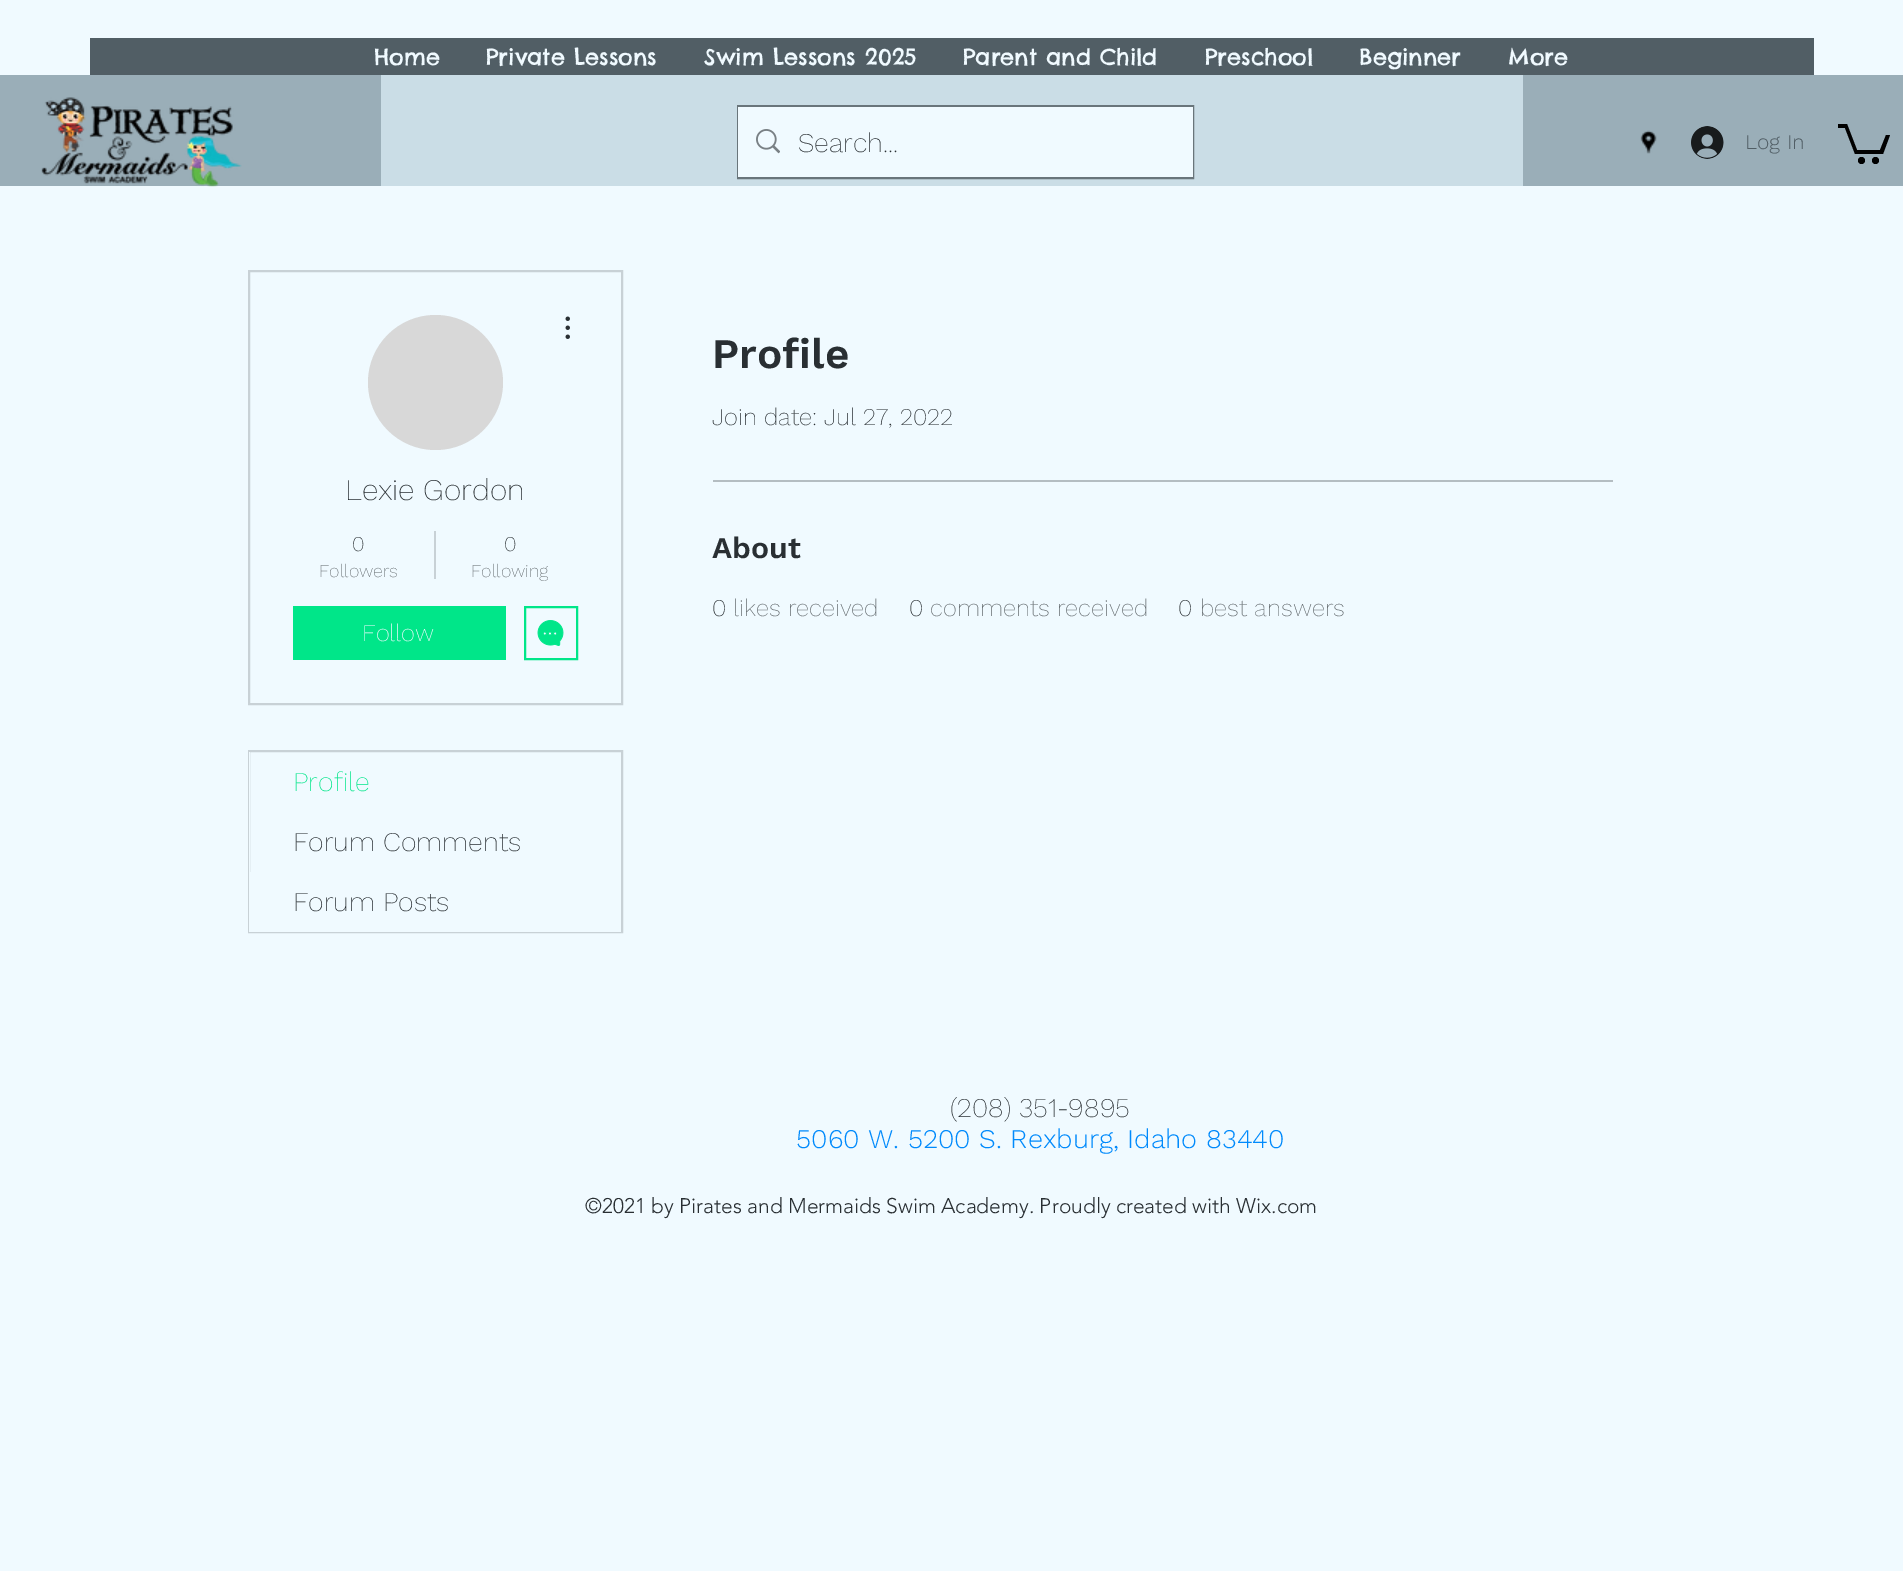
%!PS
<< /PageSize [1903 1571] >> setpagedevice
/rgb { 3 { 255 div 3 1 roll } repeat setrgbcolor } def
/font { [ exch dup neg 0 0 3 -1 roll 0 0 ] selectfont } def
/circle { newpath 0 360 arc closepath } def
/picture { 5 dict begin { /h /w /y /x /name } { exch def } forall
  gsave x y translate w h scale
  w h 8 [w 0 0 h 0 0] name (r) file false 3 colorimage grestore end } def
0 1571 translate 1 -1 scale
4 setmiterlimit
240 250 255 rgb
0 0 1903 1571 rectfill
81 94 101 rgb
90 38 1724 37 rectfill
154 174 184 rgb
0 75 1903 111 rectfill
(img/1.rgb) 41 97 201 90 picture
202 221 230 rgb
381 75 1142 111 rectfill
105 117 123 rgb
2 setlinewidth
738 106 455 72 rectstroke
240 250 255 rgb
738 107 455 70 rectfill
(img/2.rgb) 756 129 24 25 picture
(img/3.rgb) 1640 130 17 24 picture
(img/4.rgb) 1691 126 33 33 picture
0 0 0 rgb
1890 135 moveto 1883 154 lineto 1855 154 lineto 1845 128 lineto 1838 128 lineto 1838 124 lineto 1847 124 lineto 1857 150 lineto 1880 150 lineto 1886 135 lineto fill
1875.5 160.5 3.5 circle fill
1861.5 160.5 3.5 circle fill
200 209 214 rgb
249 271 373 433 rectstroke
216 216 216 rgb
435.5 382.5 67.5 circle fill
(img/5.rgb) 565 316 5 23 picture
200 209 214 rgb
434 531 2 48 rectfill
0 230 137 rgb
293 606 213 54 rectfill
525 607 52 52 rectstroke
(img/6.rgb) 537 620 27 26 picture
200 209 214 rgb
249 751 373 181 rectstroke
[
  [249 752 1 120 240 250 255]
  [249 872 372 60 240 250 255]
  [713 480 900 2 180 189 194]
] { aload pop rgb rectfill } forall
/ChelseaMarket-Regular 22.5 font
240 250 255 rgb
[
  [(Home) 374 65]
  [(Private Lessons) 486 65]
  [(Swim Lessons 2025) 704 65]
  [(Parent and Child) 963 65]
  [(Preschool) 1205 65]
  [(Beginner) 1359 65]
  [(More) 1508 65]
] { aload pop moveto show } forall
/WorkSans-ExtraLight 27 font
41 47 51 rgb
798 152 moveto (Search...) show
/WorkSans-Light 21 font
81 94 101 rgb
1745 149 moveto (Log In) show
/WorkSans-ExtraLight 30 font
41 47 51 rgb
345 500 moveto (Lexie Gordon) show
/WorkSans-ExtraLight 21 font
352 551 moveto (0) show
/WorkSans-ExtraLight 18 font
101 108 112 rgb
319 577 moveto (Followers) show
/WorkSans-ExtraLight 21 font
41 47 51 rgb
504 551 moveto (0) show
/WorkSans-ExtraLight 18 font
101 108 112 rgb
471 577 moveto (Following) show
/WorkSans-ExtraLight 24 font
240 250 255 rgb
362 641 moveto (Follow) show
/WorkSans-ExtraLight 27 font
0 230 137 rgb
293 791 moveto (Profile) show
41 47 51 rgb
293 851 moveto (Forum Comments) show
293 911 moveto (Forum Posts) show
/WorkSans-SemiBold 42 font
712 368 moveto (Profile) show
/WorkSans-ExtraLight 24 font
712 425 moveto (Join date: Jul 27, 2022) show
/WorkSans-SemiBold 30 font
712 558 moveto (About) show
/WorkSans-ExtraLight 24 font
712 616 moveto (0) show
101 108 112 rgb
733 616 moveto (likes received) show
41 47 51 rgb
909 616 moveto (0) show
101 108 112 rgb
930 616 moveto (comments received) show
41 47 51 rgb
1178 616 moveto (0) show
101 108 112 rgb
1200 616 moveto (best answers) show
/WorkSans-ExtraLight 27 font
41 47 51 rgb
950 1117 moveto (\(208\) 351-9895) show
/WorkSans-Light 27 font
0 138 252 rgb
796 1148 moveto (5060 W. 5200 S. Rexburg, Idaho 83440) show
/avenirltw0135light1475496-Light 21 font
41 47 51 rgb
585 1213 moveto (©2021 by Pirates and Mermaids Swim Academy. Proudly created with Wix.com) show
showpage
